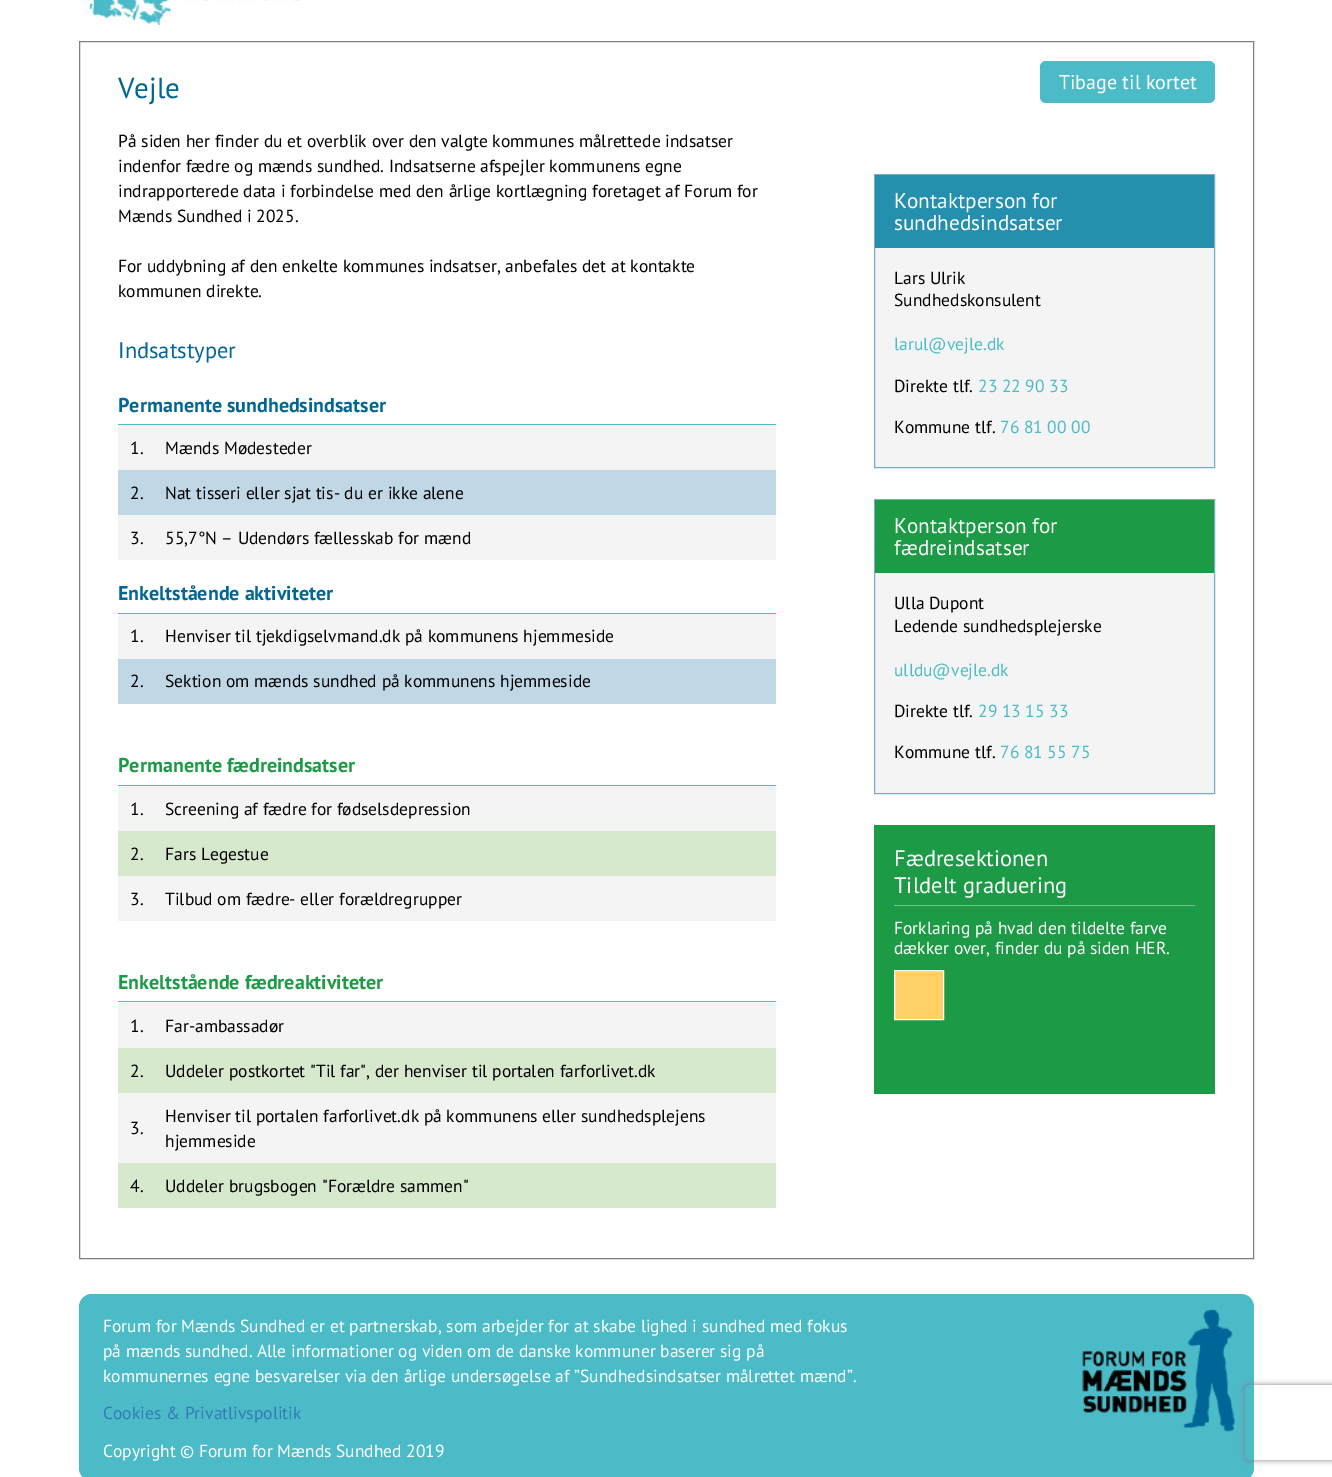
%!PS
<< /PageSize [1332 1477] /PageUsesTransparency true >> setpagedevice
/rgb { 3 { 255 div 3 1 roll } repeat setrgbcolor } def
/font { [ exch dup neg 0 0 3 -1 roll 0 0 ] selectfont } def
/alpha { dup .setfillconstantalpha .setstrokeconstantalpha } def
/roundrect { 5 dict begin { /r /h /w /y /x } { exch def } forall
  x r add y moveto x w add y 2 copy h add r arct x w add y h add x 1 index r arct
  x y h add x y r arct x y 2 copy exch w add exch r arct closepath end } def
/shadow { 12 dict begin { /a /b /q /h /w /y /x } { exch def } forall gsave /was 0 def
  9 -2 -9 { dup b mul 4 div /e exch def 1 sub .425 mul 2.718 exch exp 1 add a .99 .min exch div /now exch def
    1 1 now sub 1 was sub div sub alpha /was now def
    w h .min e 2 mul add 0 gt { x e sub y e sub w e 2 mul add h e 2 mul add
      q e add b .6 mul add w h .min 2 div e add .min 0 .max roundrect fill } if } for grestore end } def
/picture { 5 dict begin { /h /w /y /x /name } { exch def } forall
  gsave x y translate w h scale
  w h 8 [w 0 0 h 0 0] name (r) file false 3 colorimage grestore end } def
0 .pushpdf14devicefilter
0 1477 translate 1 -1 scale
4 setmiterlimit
255 255 255 rgb
0 0 1332 1477 rectfill
(img/1.rgb) 88 0 220 25 picture
127 127 127 rgb
79.5 41.5 1174 1217 rectstroke
[
  [118 424 658 1 75 187 200]
  [118 425 658 45 244 244 244]
  [118 470 658 45 192 215 229]
  [118 515 658 45 244 244 244]
  [118 613 658 1 75 187 200]
  [118 614 658 45 244 244 244]
  [118 659 658 45 192 215 229]
  [118 785 658 1 75 187 200]
  [118 786 658 45 244 244 244]
  [118 831 658 45 214 233 205]
  [118 876 658 45 244 244 244]
  [118 1001 658 1 75 187 200]
  [118 1003 658 45 244 244 244]
  [118 1048 658 45 214 233 205]
  [118 1093 658 70 244 244 244]
  [118 1163 658 45 214 233 205]
] { aload pop rgb rectfill } forall
75 187 200 rgb
1040 61 175 42 6 roundrect fill
244 244 244 rgb
875 248 339 219 rectfill
122 173 196 rgb
874.5 174.5 340 293 rectstroke
37 144 174 rgb
875 175 339 73 rectfill
244 244 244 rgb
875 573 339 220 rectfill
122 173 196 rgb
874.5 499.5 340 294 rectstroke
[
  [875 500 339 73 28 154 69]
  [874 825 341 269 28 154 69]
  [894 905 301 1 127 178 202]
] { aload pop rgb rectfill } forall
254 208 101 rgb
894.5 970.5 moveto 943.5 970.5 lineto 943.5 1019.5 lineto 894.5 1019.5 lineto closepath gsave fill grestore
255 255 255 rgb
stroke
75 187 200 rgb
79 1294 1175 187 13 roundrect fill
(img/2.rgb) 1082 1309 153 123 picture
gsave
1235 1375 moveto 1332 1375 lineto 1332 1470 lineto 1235 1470 lineto closepath 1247.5 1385 moveto 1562.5 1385 lineto 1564 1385 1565 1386 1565 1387.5 curveto 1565 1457.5 lineto 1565 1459 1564 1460 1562.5 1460 curveto 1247.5 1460 lineto 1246 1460 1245 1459 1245 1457.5 curveto 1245 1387.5 lineto 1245 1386 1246 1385 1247.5 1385 curveto closepath eoclip newpath
128 128 128 rgb
1245 1385 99 75 2.5 3 1 shadow
grestore
/PTSans-Regular 29 font
0 102 149 rgb
118 98 moveto (Vejle) show
/PTSans-Regular 17.5 font
0 0 0 rgb
[
  [(På siden her finder du et overblik over den valgte kommunes målrettede indsatser) 118 147]
  [(indenfor fædre og mænds sundhed. Indsatserne afspejler kommunens egne) 118 172]
  [(indrapporterede data i forbindelse med den årlige kortlægning foretaget af Forum for) 118 197]
  [(Mænds Sundhed i 2025.) 118 222]
  [(For uddybning af den enkelte kommunes indsatser, anbefales det at kontakte) 118 272]
  [(kommunen direkte.) 118 297]
] { aload pop moveto show } forall
/PTSans-Regular 22.5 font
0 102 149 rgb
118 358 moveto (Indsatstyper) show
/PTSans-Bold 20 font
118 412 moveto (Permanente sundhedsindsatser) show
/PTSans-Regular 17.5 font
0 0 0 rgb
[
  [(1.) 130 454]
  [(Mænds Mødesteder) 165 454]
  [(2.) 130 499]
  [(Nat tisseri eller sjat tis- du er ikke alene) 165 499]
  [(3.) 130 544]
  [(55,7°N – Udendørs fællesskab for mænd) 165 544]
] { aload pop moveto show } forall
/PTSans-Bold 20 font
0 102 149 rgb
118 600 moveto (Enkeltstående aktiviteter) show
/PTSans-Regular 17.5 font
0 0 0 rgb
[
  [(1.) 130 642]
  [(Henviser til tjekdigselvmand.dk på kommunens hjemmeside) 165 642]
  [(2.) 130 687]
  [(Sektion om mænds sundhed på kommunens hjemmeside) 165 687]
] { aload pop moveto show } forall
/PTSans-Bold 20 font
28 154 69 rgb
118 772 moveto (Permanente fædreindsatser) show
/PTSans-Regular 17.5 font
0 0 0 rgb
[
  [(1.) 130 815]
  [(Screening af fædre for fødselsdepression) 165 815]
  [(2.) 130 860]
  [(Fars Legestue) 165 860]
  [(3.) 130 905]
  [(Tilbud om fædre- eller forældregrupper) 165 905]
] { aload pop moveto show } forall
/PTSans-Bold 20 font
28 154 69 rgb
118 989 moveto (Enkeltstående fædreaktiviteter) show
/PTSans-Regular 17.5 font
0 0 0 rgb
[
  [(1.) 130 1032]
  [(Far-ambassadør) 165 1032]
  [(2.) 130 1077]
  [(Uddeler postkortet "Til far", der henviser til portalen farforlivet.dk) 165 1077]
  [(3.) 130 1134]
  [(Henviser til portalen farforlivet.dk på kommunens eller sundhedsplejens) 165 1122]
  [(hjemmeside) 165 1147]
  [(4.) 130 1192]
  [(Uddeler brugsbogen "Forældre sammen") 165 1192]
] { aload pop moveto show } forall
/PTSans-Regular 20 font
255 255 255 rgb
1059 89 moveto (Tibage til kortet) show
/PTSans-Regular 21.25 font
894 208 moveto (Kontaktperson for) show
894 230 moveto (sundhedsindsatser) show
/PTSans-Regular 17.5 font
0 0 0 rgb
894 284 moveto (Lars Ulrik) show
894 306 moveto (Sundhedskonsulent) show
75 187 200 rgb
894 350 moveto (larul@vejle.dk) show
0 0 0 rgb
894 392 moveto (Direkte tlf.) show
75 187 200 rgb
978 392 moveto (23 22 90 33) show
0 0 0 rgb
894 433 moveto (Kommune tlf.) show
75 187 200 rgb
1000 433 moveto (76 81 00 00) show
/PTSans-Regular 21.25 font
255 255 255 rgb
894 533 moveto (Kontaktperson for) show
894 555 moveto (fædreindsatser) show
/PTSans-Regular 17.5 font
0 0 0 rgb
894 609 moveto (Ulla Dupont) show
894 632 moveto (Ledende sundhedsplejerske) show
75 187 200 rgb
894 676 moveto (ulldu@vejle.dk) show
0 0 0 rgb
894 717 moveto (Direkte tlf.) show
75 187 200 rgb
978 717 moveto (29 13 15 33) show
0 0 0 rgb
894 758 moveto (Kommune tlf.) show
75 187 200 rgb
1000 758 moveto (76 81 55 75) show
/PTSans-Regular 22.5 font
255 255 255 rgb
894 866 moveto (Fædresektionen) show
894 893 moveto (Tildelt graduering) show
/PTSans-Regular 17.5 font
[
  [(Forklaring på hvad den tildelte farve) 894 934]
  [(dækker over, finder du på siden HER.) 894 954]
  [(Forum for Mænds Sundhed er et partnerskab, som arbejder for at skabe lighed i sundhed med fokus) 103 1332]
  [(på mænds sundhed. Alle informationer og viden om de danske kommuner baserer sig på) 103 1357]
  [(kommunernes egne besvarelser via den årlige undersøgelse af ”Sundhedsindsatser målrettet mænd”.) 103 1382]
] { aload pop moveto show } forall
51 122 183 rgb
103 1419 moveto (Cookies & Privatlivspolitik) show
255 255 255 rgb
103 1457 moveto (Copyright © Forum for Mænds Sundhed 2019) show
.poppdf14devicefilter showpage
